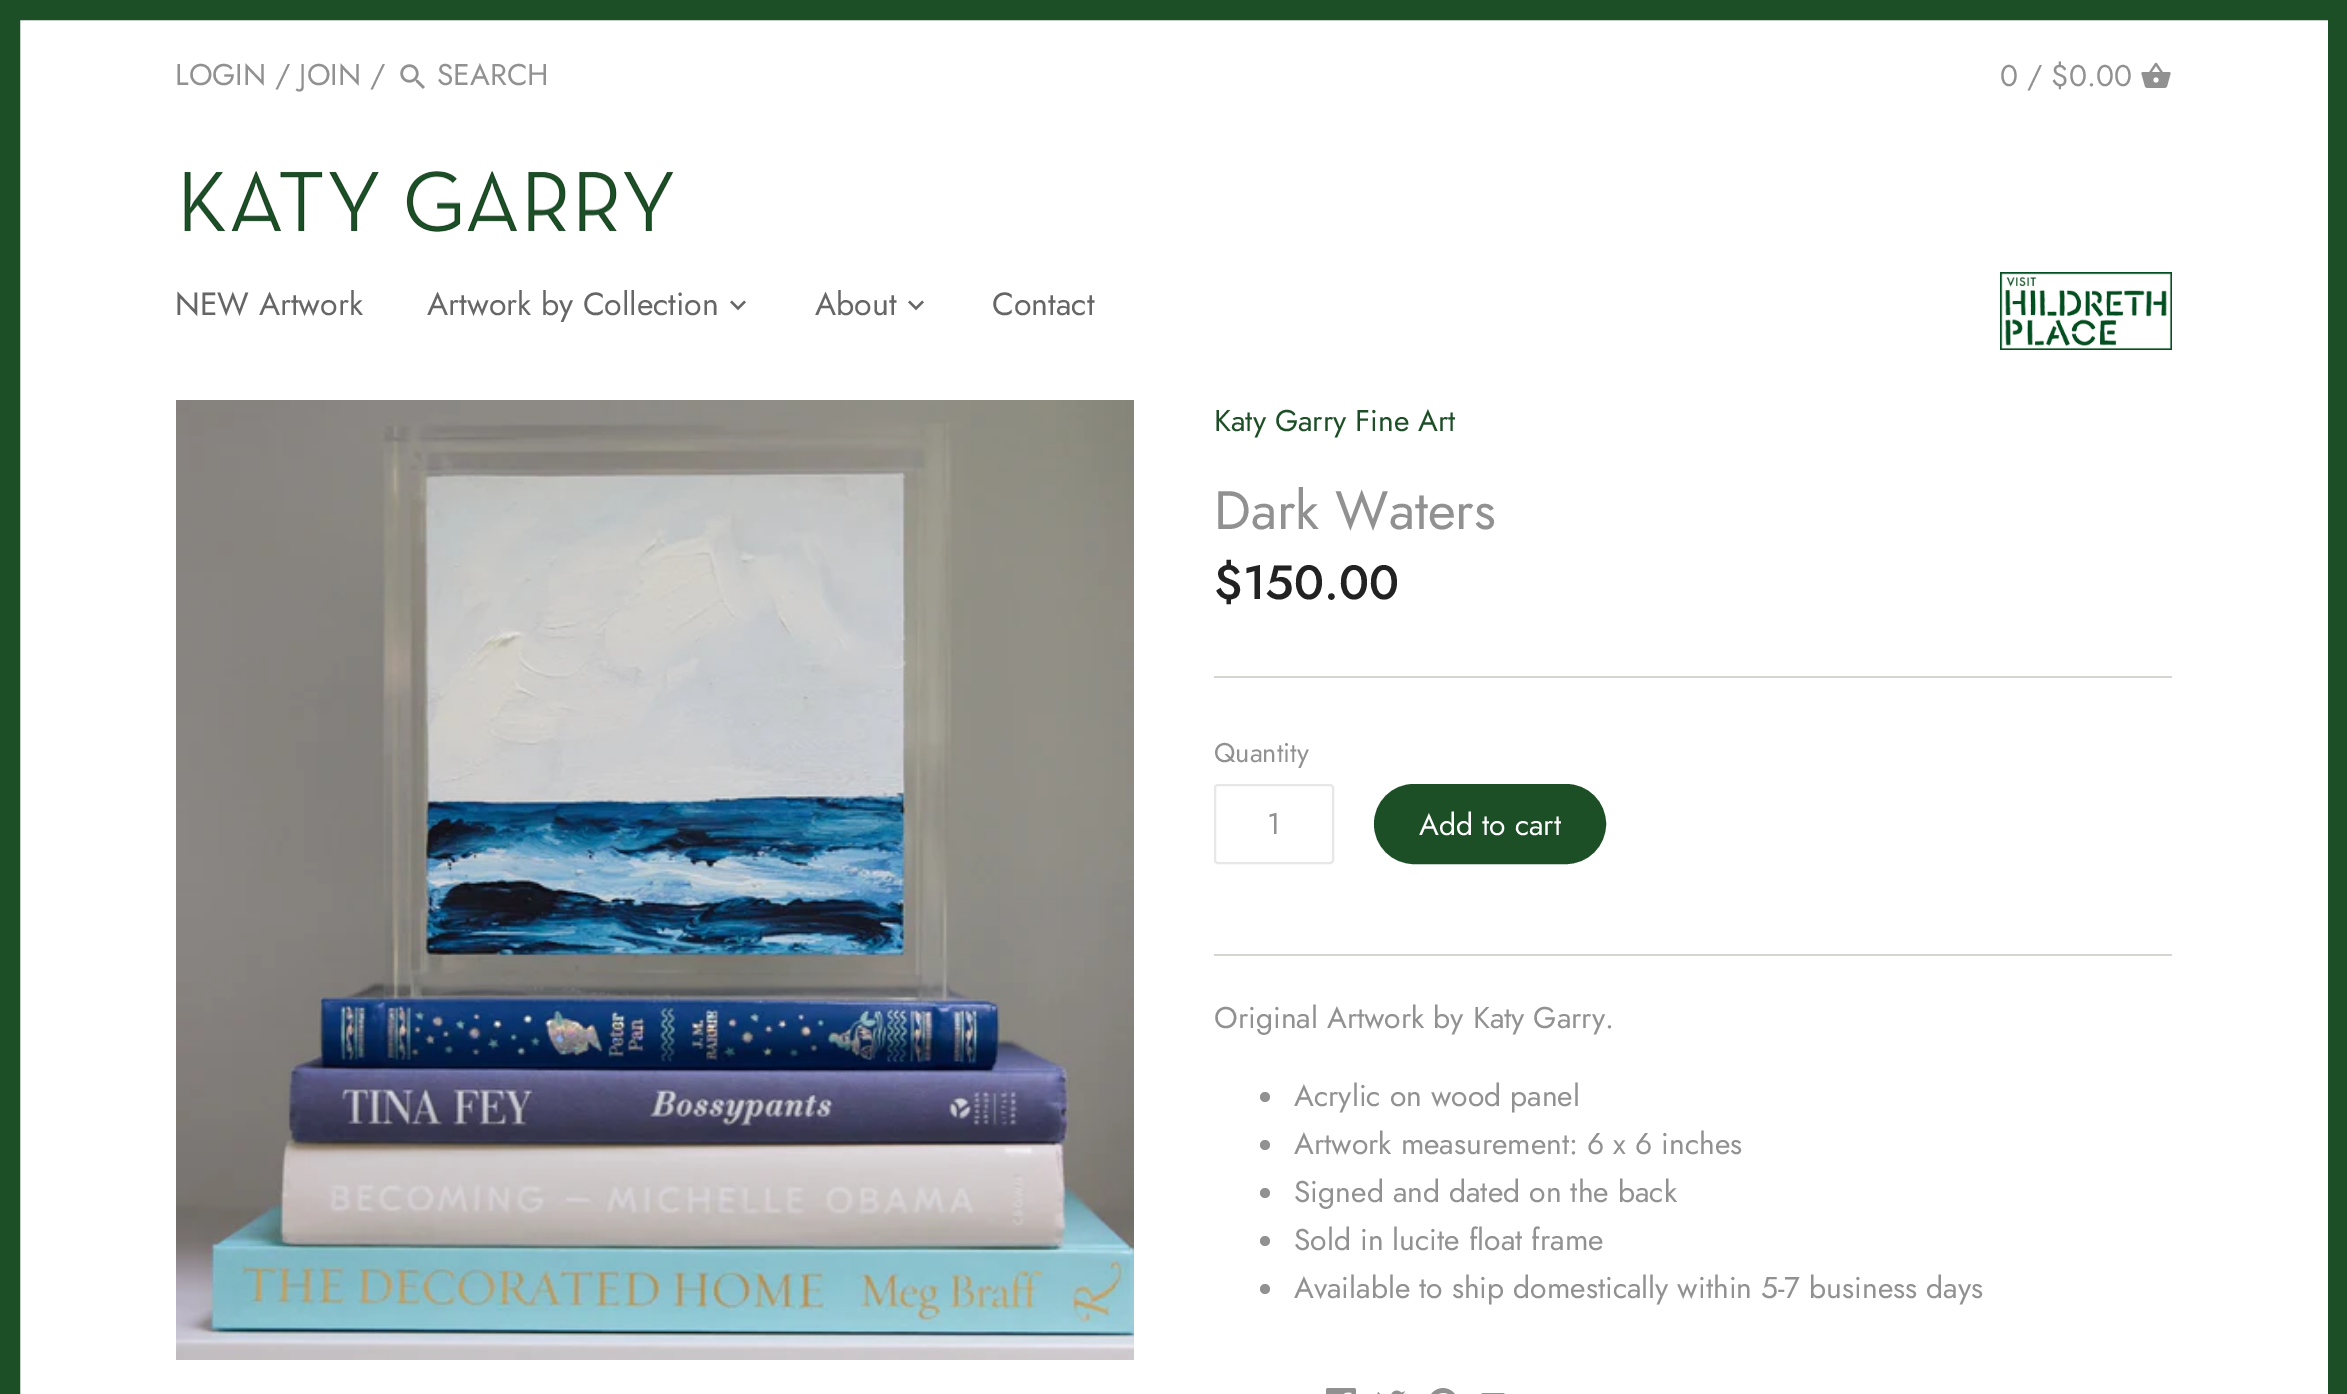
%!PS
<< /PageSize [2347 1394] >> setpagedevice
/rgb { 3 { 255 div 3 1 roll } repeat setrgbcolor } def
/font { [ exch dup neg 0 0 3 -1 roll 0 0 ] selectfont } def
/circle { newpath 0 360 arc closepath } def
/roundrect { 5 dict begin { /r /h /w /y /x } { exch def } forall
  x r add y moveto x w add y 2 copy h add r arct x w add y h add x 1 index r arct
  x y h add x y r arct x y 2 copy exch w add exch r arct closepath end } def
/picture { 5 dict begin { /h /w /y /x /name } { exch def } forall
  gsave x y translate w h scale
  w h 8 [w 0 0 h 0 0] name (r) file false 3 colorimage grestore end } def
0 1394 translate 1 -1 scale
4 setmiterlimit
255 255 255 rgb
0 0 2347 1394 rectfill
29 79 39 rgb
20 setlinewidth
10 10 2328 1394 rectstroke
(img/1.rgb) 400 64 25 25 picture
(img/2.rgb) 2141 62 30 26 picture
(img/3.rgb) 184 171 490 61 picture
(img/4.rgb) 730 300 16 11 picture
(img/4.rgb) 908 300 16 11 picture
(img/5.rgb) 2000 272 172 78 picture
(img/6.rgb) 176 400 958 960 picture
213 214 208 rgb
1214 676 958 2 rectfill
1214 954 958 2 rectfill
232 231 231 rgb
2 setlinewidth
1215 785 118 78 3 roundrect stroke
29 79 39 rgb
1376 786 228 76 38 roundrect gsave fill grestore
4 setlinewidth
stroke
146 145 145 rgb
1265 1097 5 circle fill
1265 1145 5 circle fill
1265 1193 5 circle fill
1265 1241 5 circle fill
1265 1289 5 circle fill
(img/7.rgb) 1326 1388 30 6 picture
(img/8.rgb) 1377 1390 29 4 picture
(img/9.rgb) 1431 1388 24 6 picture
(img/10.rgb) 1481 1393 24 1 picture
/Jost-Regular 30 font
[
  [(LOGIN / JOIN /) 175 85]
  [(SEARCH) 437 85]
  [(0 / $0.00) 2000 86]
] { aload pop moveto show } forall
/Jost-Regular 32 font
102 102 102 rgb
[
  [(NEW Artwork) 175 315]
  [(Artwork by Collection) 427 315]
  [(About) 815 315]
  [(Contact) 992 315]
] { aload pop moveto show } forall
/Jost-Regular 30 font
29 79 39 rgb
1214 431 moveto (Katy Garry Fine Art) show
/Jost-Regular 54 font
146 145 145 rgb
1214 529 moveto (Dark Waters) show
/Jost-Medium 48 font
34 34 34 rgb
1214 599 moveto ($150.00) show
/Jost-Regular 27 font
146 145 145 rgb
1214 762 moveto (Quantity) show
/Jost-Regular 30 font
1267 834 moveto (1) show
255 255 255 rgb
1419 835 moveto (Add to cart) show
146 145 145 rgb
[
  [(Original Artwork by Katy Garry.) 1214 1028]
  [(Acrylic on wood panel) 1294 1106]
  [(Artwork measurement: 6 x 6 inches) 1294 1154]
  [(Signed and dated on the back) 1294 1202]
  [(Sold in lucite float frame) 1294 1250]
  [(Available to ship domestically within 5-7 business days) 1294 1298]
] { aload pop moveto show } forall
showpage
